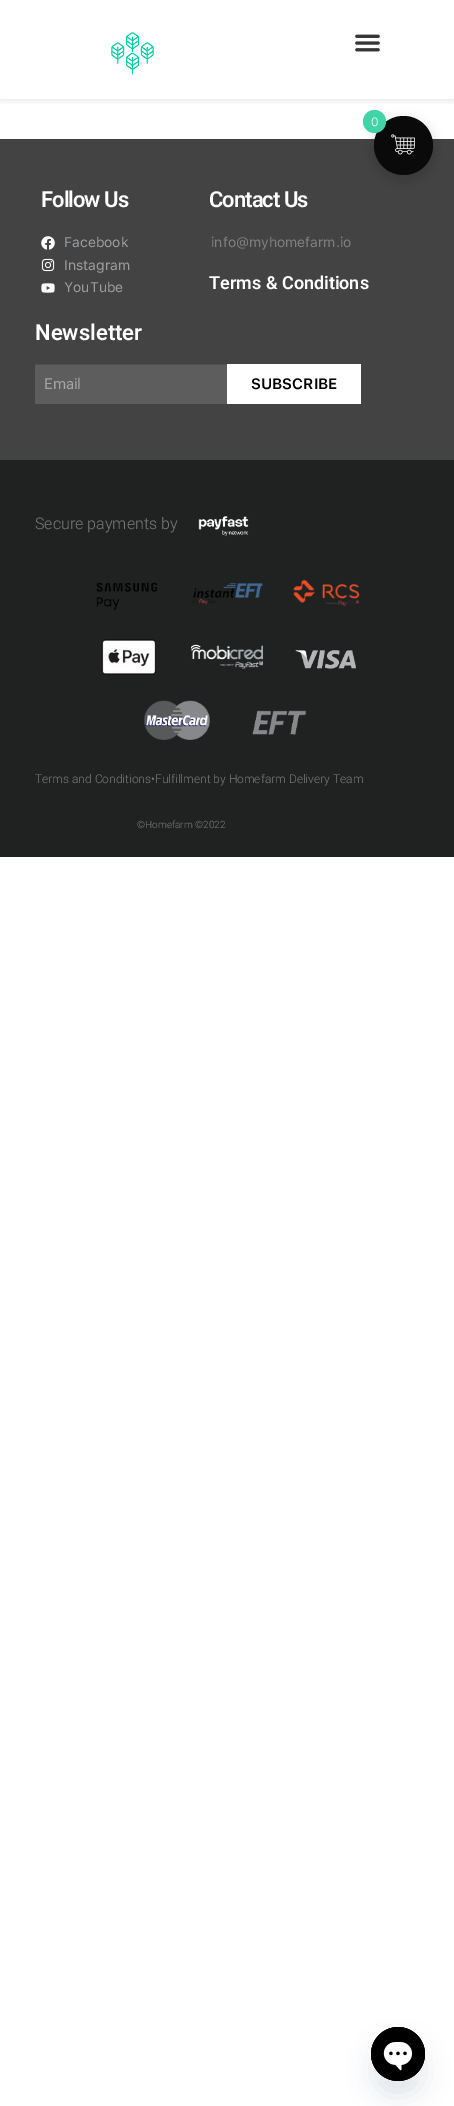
%!PS
<< /PageSize [454 2106] /PageUsesTransparency true >> setpagedevice
/rgb { 3 { 255 div 3 1 roll } repeat setrgbcolor } def
/font { [ exch dup neg 0 0 3 -1 roll 0 0 ] selectfont } def
/alpha { dup .setfillconstantalpha .setstrokeconstantalpha } def
/circle { newpath 0 360 arc closepath } def
/roundrect { 5 dict begin { /r /h /w /y /x } { exch def } forall
  x r add y moveto x w add y 2 copy h add r arct x w add y h add x 1 index r arct
  x y h add x y r arct x y 2 copy exch w add exch r arct closepath end } def
/shadow { 12 dict begin { /a /b /q /h /w /y /x } { exch def } forall gsave /was 0 def
  9 -2 -9 { dup b mul 4 div /e exch def 1 sub .425 mul 2.718 exch exp 1 add a .99 .min exch div /now exch def
    1 1 now sub 1 was sub div sub alpha /was now def
    w h .min e 2 mul add 0 gt { x e sub y e sub w e 2 mul add h e 2 mul add
      q e add b .6 mul add w h .min 2 div e add .min 0 .max roundrect fill } if } for grestore end } def
/picture { 5 dict begin { /h /w /y /x /name } { exch def } forall
  gsave x y translate w h scale
  w h 8 [w 0 0 h 0 0] name (r) file false 3 colorimage grestore end } def
0 .pushpdf14devicefilter
0 2106 translate 1 -1 scale
4 setmiterlimit
255 255 255 rgb
0 0 454 2106 rectfill
gsave
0 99 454 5 rectclip
0 0 0 rgb
0 0 454 99 0 5 0.14 shadow
grestore
(img/1.rgb) 111 32 43 43 picture
(img/2.rgb) 355 34 25 18 picture
67 67 67 rgb
0 139 454 321 rectfill
0 0 0 rgb
374 120 59 59 29.5 6 0.17 shadow
10 10 10 rgb
403.5 145.5 29.5 circle fill
64 212 167 rgb
374.5 121.5 11.5 circle fill
(img/3.rgb) 391 134 24 21 picture
(img/4.rgb) 41 236 14 14 picture
(img/5.rgb) 41 258 14 14 picture
(img/6.rgb) 41 283 14 10 picture
[
  [35 365 192 39 93 93 93]
  [35 364 192 1 81 81 81]
  [227 364 134 40 255 255 255]
  [0 460 454 397 32 34 34]
] { aload pop rgb rectfill } forall
(img/7.rgb) 198 516 51 21 picture
(img/8.rgb) 96 582 62 28 picture
(img/9.rgb) 192 583 71 21 picture
(img/10.rgb) 293 579 67 28 picture
(img/11.rgb) 101 639 55 36 picture
(img/12.rgb) 191 644 72 25 picture
(img/13.rgb) 295 650 61 19 picture
(img/14.rgb) 144 700 66 40 picture
(img/15.rgb) 252 710 55 25 picture
73 104 126 rgb
371 2043 54 54 27 12 0.16 shadow
(img/16.rgb) 371 2027 54 54 picture
/SFProText-Light 12 font
255 255 255 rgb
371 126 moveto (0) show
/Roboto-SemiBold 22 font
41 207 moveto -1 0 (Follow Us) ashow
/SFProText-Regular 14 font
156 158 160 rgb
[
  [(Facebook) 64 247]
  [(Instagram) 64 270]
  [(YouTube) 64 292]
] { aload pop moveto show } forall
/Roboto-SemiBold 22 font
255 255 255 rgb
209 207 moveto -1 0 (Contact Us) ashow
/SFProText-Regular 14 font
128 128 128 rgb
211 247 moveto (info@myhomefarm.io) show
/Roboto-SemiBold 18 font
255 255 255 rgb
209 289 moveto (Terms & Conditions) show
/Roboto-SemiBold 22 font
35 340 moveto (Newsletter) show
/Roboto-Regular 15 font
164 164 164 rgb
44 389 moveto (Email) show
/SFProText-SemiBold 15 font
0 0 0 rgb
251 389 moveto (SUBSCRIBE) show
/Roboto-Light 16 font
122 122 122 rgb
35 529 moveto (Secure payments by) show
/Roboto-Light 12 font
35 783 moveto (Terms and Conditions•Fulfillment by Homefarm Delivery Team) show
/Roboto-Light 10 font
137 828 moveto (©Homefarm ©2022) show
.poppdf14devicefilter showpage
